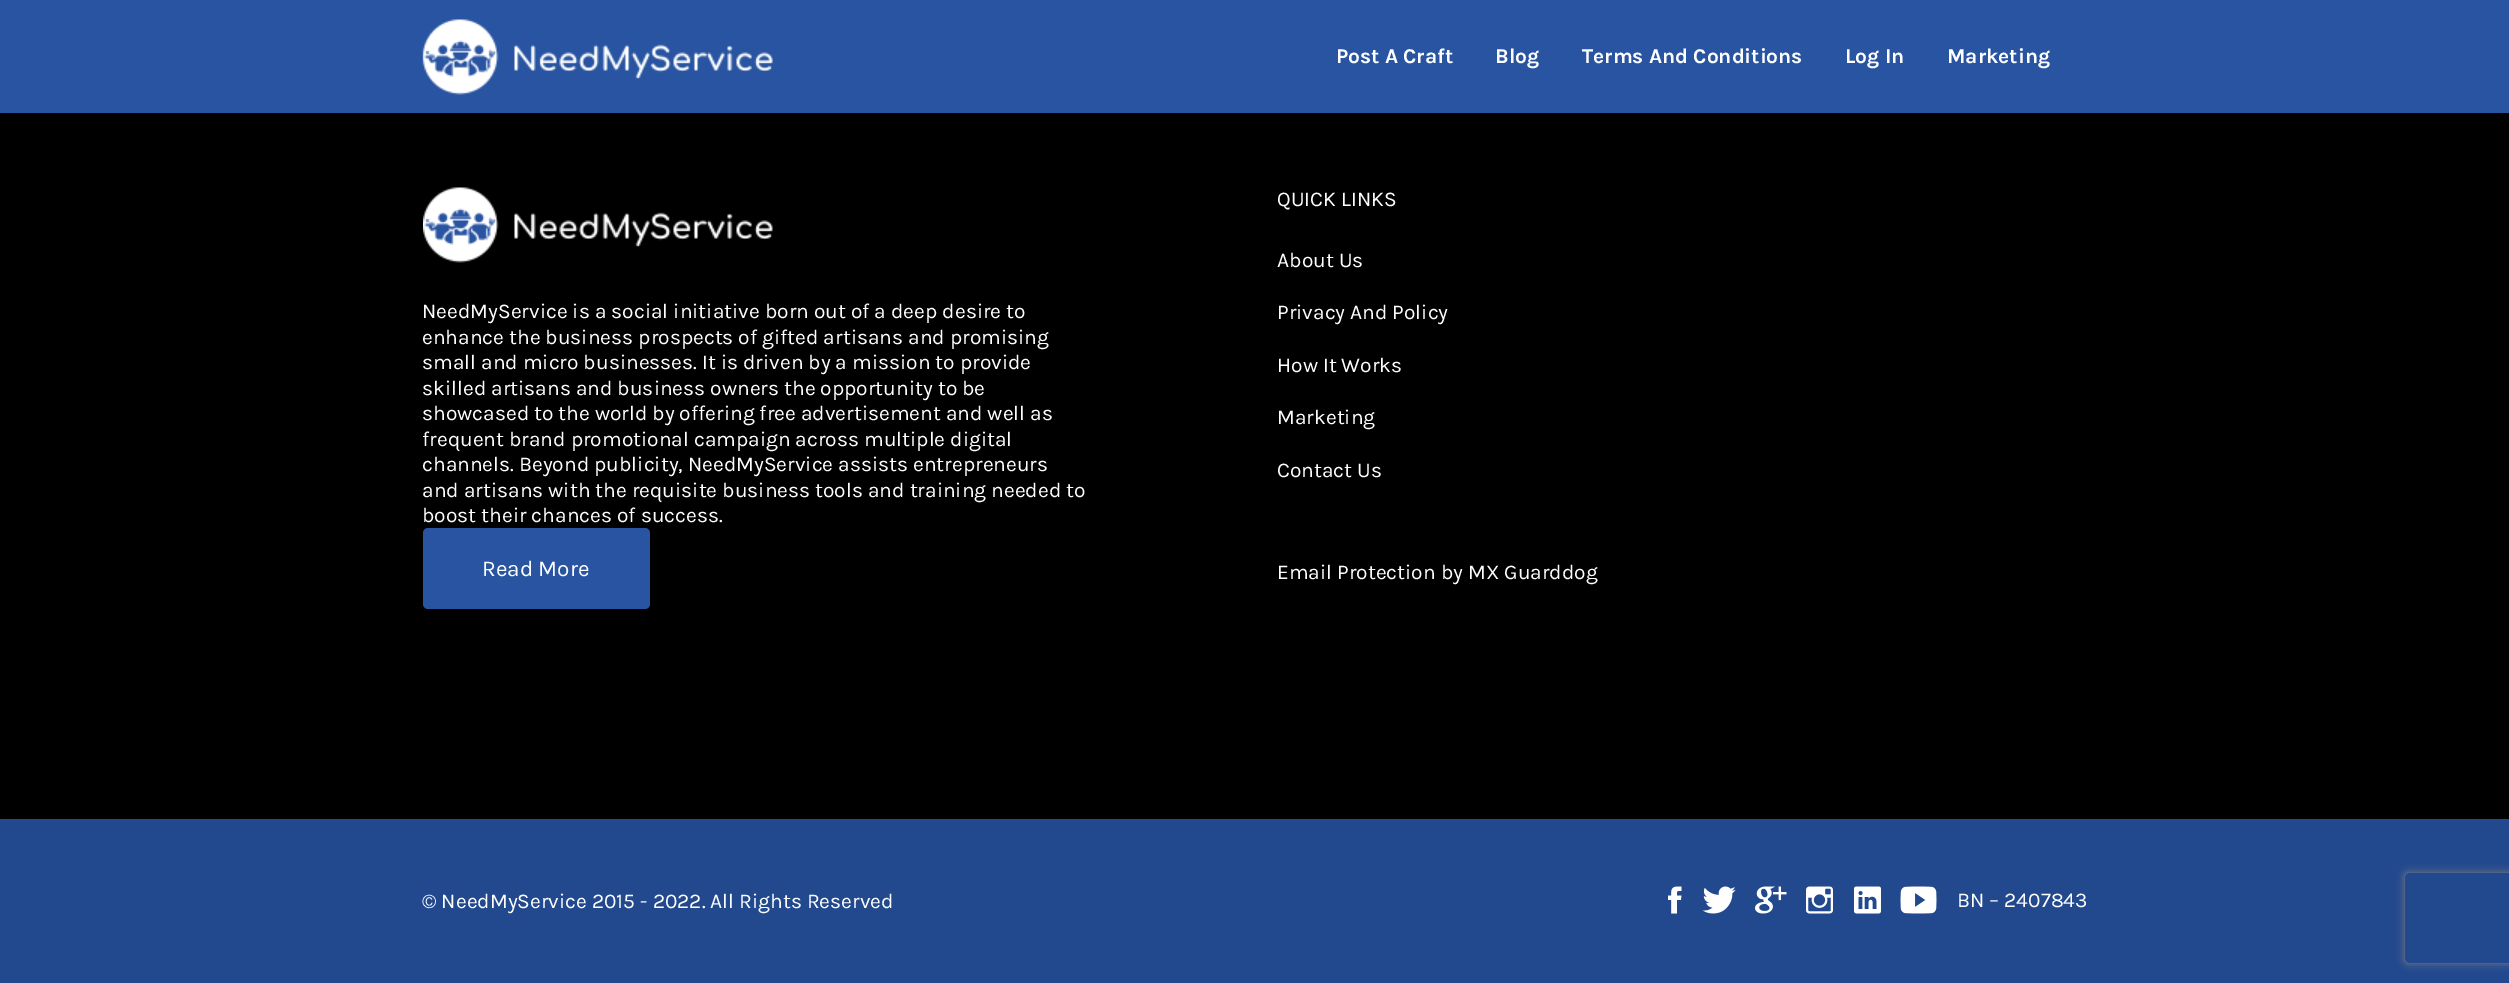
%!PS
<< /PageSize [2509 983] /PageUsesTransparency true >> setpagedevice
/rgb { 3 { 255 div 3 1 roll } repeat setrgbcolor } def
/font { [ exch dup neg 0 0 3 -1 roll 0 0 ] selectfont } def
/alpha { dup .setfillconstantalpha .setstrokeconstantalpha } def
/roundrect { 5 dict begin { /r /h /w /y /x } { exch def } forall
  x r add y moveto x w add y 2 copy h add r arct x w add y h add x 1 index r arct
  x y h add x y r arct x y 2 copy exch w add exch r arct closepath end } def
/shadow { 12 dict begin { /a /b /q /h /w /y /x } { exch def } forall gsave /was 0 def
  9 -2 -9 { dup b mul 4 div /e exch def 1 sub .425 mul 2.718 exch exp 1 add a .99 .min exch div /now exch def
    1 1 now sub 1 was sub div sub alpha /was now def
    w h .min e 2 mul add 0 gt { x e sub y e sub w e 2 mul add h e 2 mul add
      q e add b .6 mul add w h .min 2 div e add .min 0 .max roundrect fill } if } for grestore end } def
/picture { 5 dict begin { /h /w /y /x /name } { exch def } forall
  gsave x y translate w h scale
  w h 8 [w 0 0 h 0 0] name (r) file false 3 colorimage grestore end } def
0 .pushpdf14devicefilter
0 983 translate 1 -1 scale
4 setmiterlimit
0 0 0 rgb
0 0 2509 983 rectfill
40 84 161 rgb
0 0 2509 113 rectfill
(img/1.rgb) 422 19 351 76 picture
(img/2.rgb) 423 187 350 76 picture
423 528 227 81 5 roundrect fill
34 73 142 rgb
0 819 2509 164 rectfill
(img/3.rgb) 1668 886 14 28 picture
(img/4.rgb) 1702 886 34 28 picture
(img/5.rgb) 1755 886 32 28 picture
(img/6.rgb) 1806 886 27 28 picture
(img/7.rgb) 1854 886 27 28 picture
(img/8.rgb) 1900 886 37 28 picture
gsave
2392 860 moveto 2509 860 lineto 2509 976 lineto 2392 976 lineto closepath 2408 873 moveto 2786 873 lineto 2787.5 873 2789 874.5 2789 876 curveto 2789 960 lineto 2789 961.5 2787.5 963 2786 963 curveto 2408 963 lineto 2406.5 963 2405 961.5 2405 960 curveto 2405 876 lineto 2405 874.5 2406.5 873 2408 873 curveto closepath eoclip newpath
128 128 128 rgb
2405 873 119 90 3 4 1 shadow
grestore
/Karla-Bold 21 font
255 255 255 rgb
[
  [(Post A Craft) 1336 63]
  [(Blog) 1495 63]
  [(Terms And Conditions) 1582 63]
  [(Log In) 1845 63]
  [(Marketing) 1947 63]
] { aload pop moveto show } forall
/Karla-Regular 21 font
[
  [(NeedMyService is a social initiative born out of a deep desire to) 422 318]
  [(enhance the business prospects of gifted artisans and promising) 422 344]
  [(small and micro businesses. It is driven by a mission to provide) 422 369]
  [(skilled artisans and business owners the opportunity to be) 422 395]
  [(showcased to the world by offering free advertisement and well as) 422 420]
  [(frequent brand promotional campaign across multiple digital) 422 446]
  [(channels. Beyond publicity, NeedMyService assists entrepreneurs) 422 471]
  [(and artisans with the requisite business tools and training needed to) 422 497]
  [(boost their chances of success.) 422 522]
] { aload pop moveto show } forall
/Karla-Regular 22.5 font
482 576 moveto (Read More) show
/Karla-Regular 21 font
[
  [(QUICK LINKS) 1277 206]
  [(About Us) 1277 267]
  [(Privacy And Policy) 1277 319]
  [(How It Works) 1277 372]
  [(Marketing) 1277 424]
  [(Contact Us) 1277 477]
  [(Email Protection by MX Guarddog) 1277 579]
  [(© NeedMyService 2015 - 2022. All Rights Reserved) 422 908]
  [(BN – 2407843) 1957 907]
] { aload pop moveto show } forall
.poppdf14devicefilter showpage
